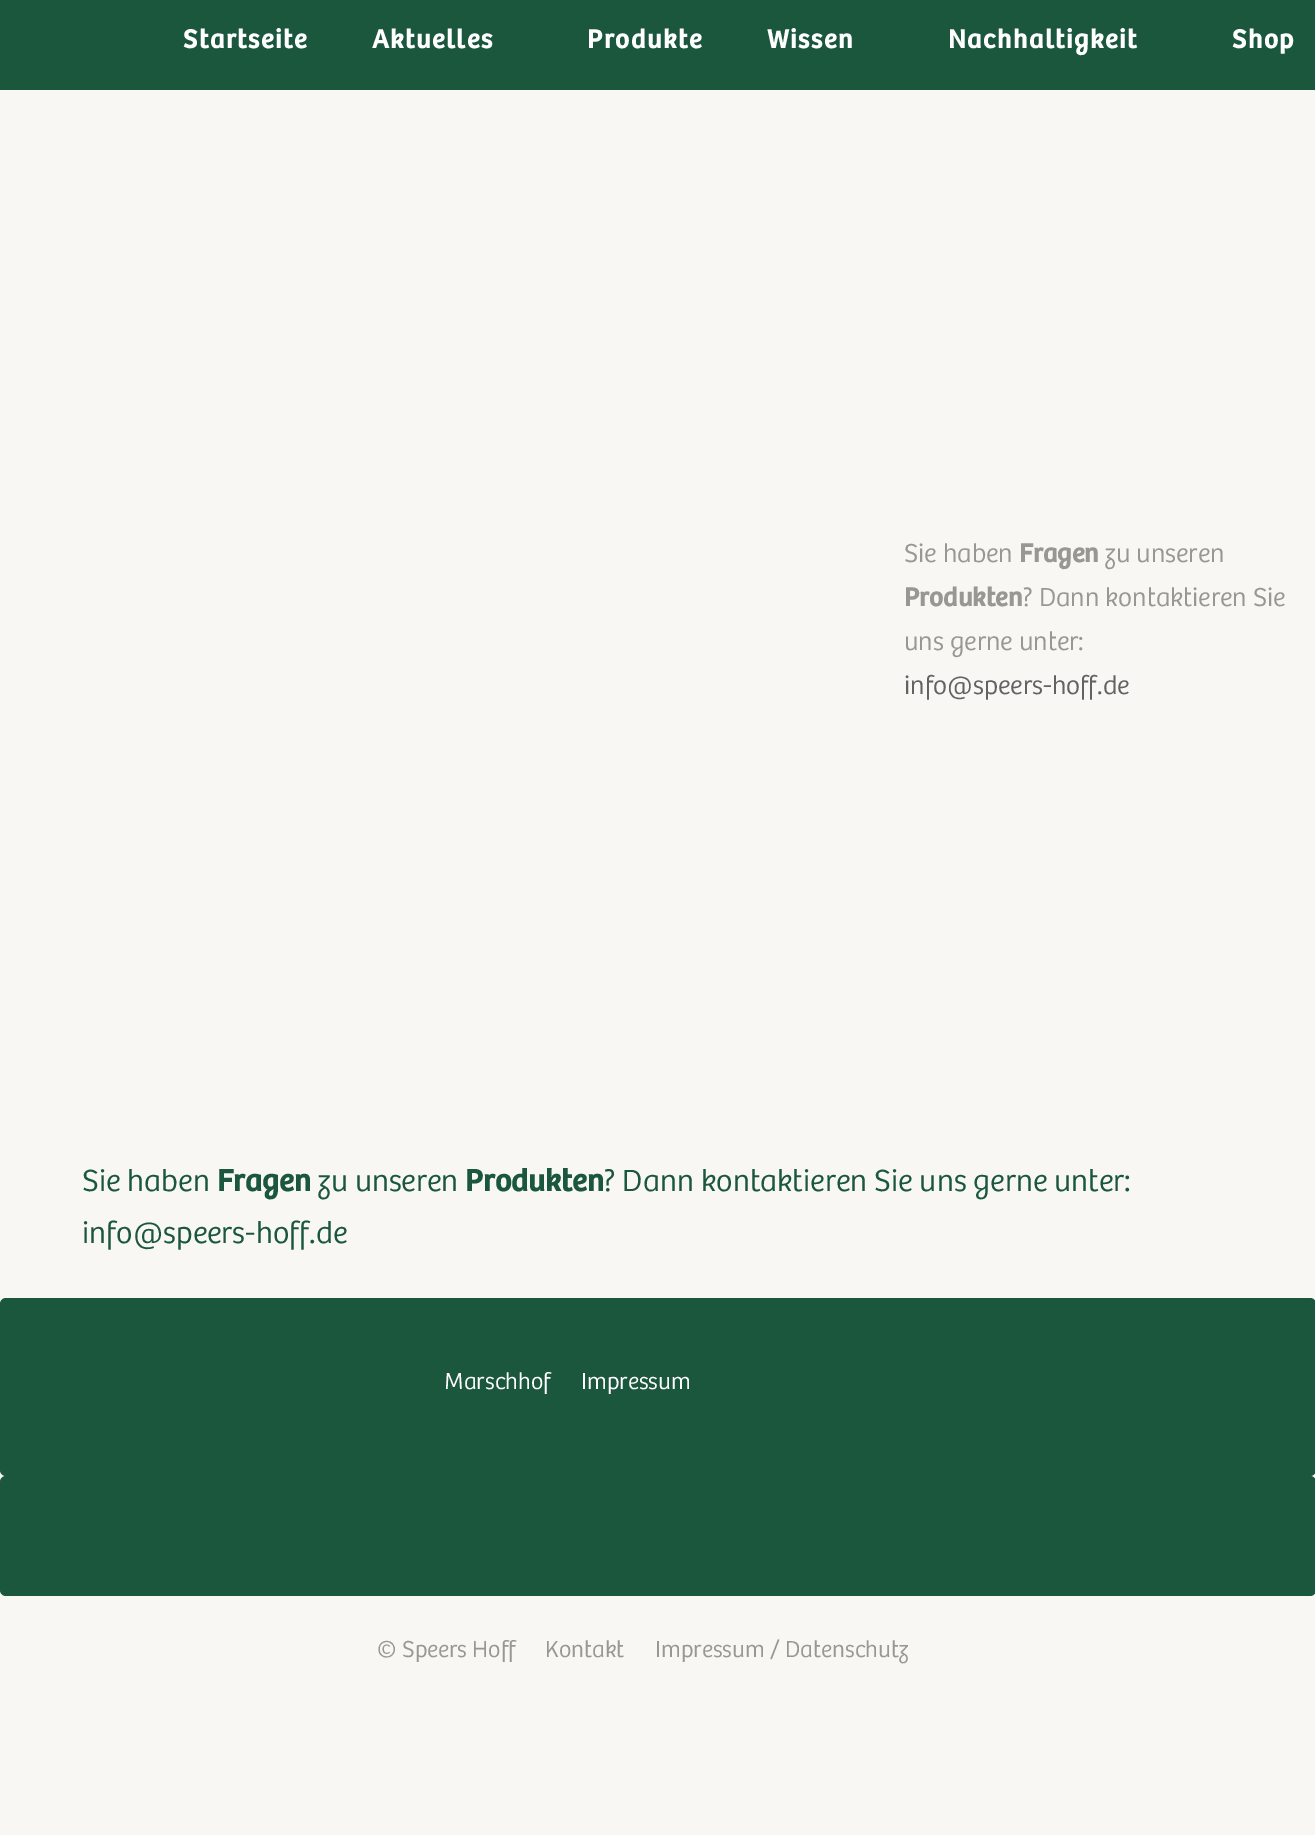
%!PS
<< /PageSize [1315 1835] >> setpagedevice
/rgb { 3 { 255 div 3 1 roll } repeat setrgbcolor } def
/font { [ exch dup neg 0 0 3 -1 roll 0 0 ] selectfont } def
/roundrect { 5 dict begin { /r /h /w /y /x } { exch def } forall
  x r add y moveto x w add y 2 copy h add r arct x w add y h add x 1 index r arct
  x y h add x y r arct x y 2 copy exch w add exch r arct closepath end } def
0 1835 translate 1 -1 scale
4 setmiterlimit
248 247 244 rgb
0 0 1315 1835 rectfill
27 87 61 rgb
0 0 1315 90 rectfill
0 1298 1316 178 6 roundrect fill
0 1476 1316 120 6 roundrect fill
/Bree-Bold 27 font
255 255 255 rgb
183 48 moveto 1.5 0 (Startseite) ashow
372 48 moveto 1.5 0 (Aktuelles) ashow
587 48 moveto 1.5 0 (Produkte) ashow
767 48 moveto 1.5 0 (Wissen) ashow
948 48 moveto 1.5 0 (Nachhaltigkeit) ashow
1232 48 moveto 1.5 0 (Shop) ashow
/Bree-Light 27 font
153 151 147 rgb
904 562 moveto (Sie haben) show
/Bree-Bold 27 font
1019 562 moveto (Fragen) show
/Bree-Light 27 font
1105 562 moveto (zu unseren) show
/Bree-Bold 27 font
904 606 moveto (Produkten) show
/Bree-Light 27 font
1023 606 moveto (? Dann kontaktieren Sie) show
904 650 moveto (uns gerne unter:) show
98 98 98 rgb
904 694 moveto (info@speers-hoff.de) show
/Bree-Light 31.75 font
27 87 61 rgb
82 1191 moveto (Sie haben) show
/Bree-Bold 31.75 font
217 1191 moveto (Fragen) show
/Bree-Light 31.75 font
318 1191 moveto (zu unseren) show
/Bree-Bold 31.75 font
465 1191 moveto (Produkten) show
/Bree-Light 31.75 font
604 1191 moveto (? Dann kontaktieren Sie uns gerne unter:) show
82 1243 moveto (info@speers-hoff.de) show
/Bree-Light 24 font
255 255 255 rgb
444 1389 moveto (Marschhof) show
581 1389 moveto (Impressum) show
153 151 147 rgb
[
  [(© Speers Hoff) 377 1657]
  [(Kontakt) 545 1657]
  [(Impressum / Datenschutz) 655 1657]
] { aload pop moveto show } forall
showpage
